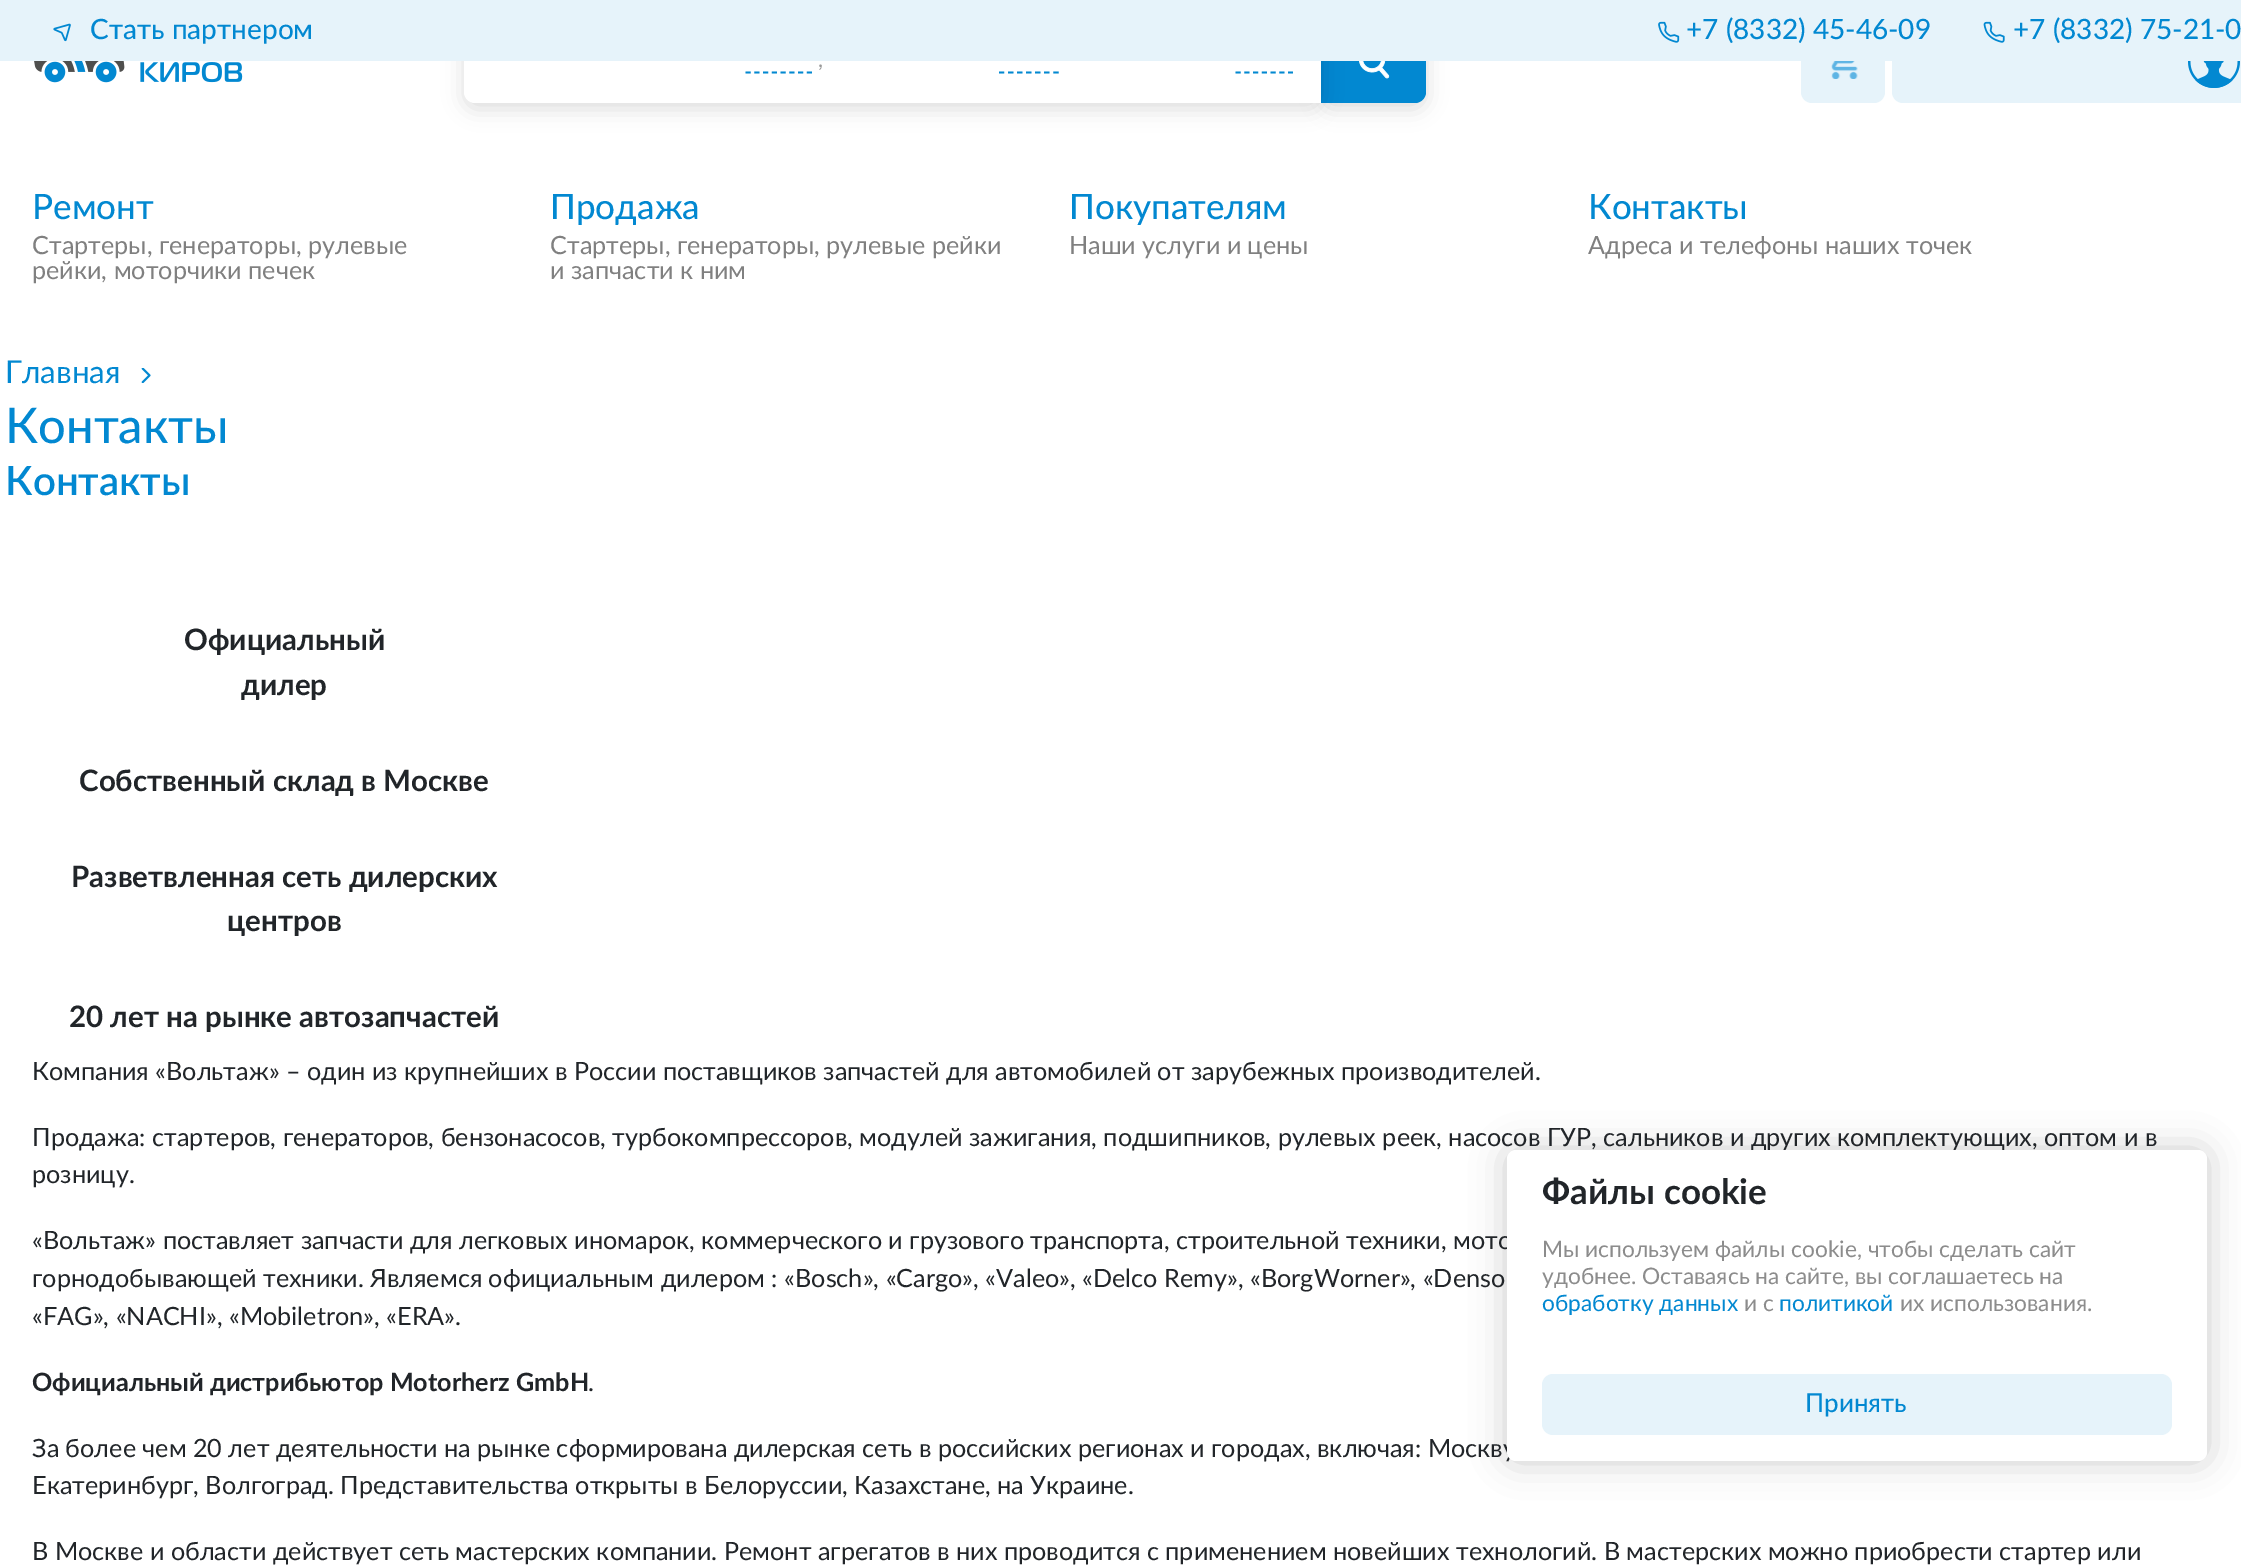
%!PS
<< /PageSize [2241 1566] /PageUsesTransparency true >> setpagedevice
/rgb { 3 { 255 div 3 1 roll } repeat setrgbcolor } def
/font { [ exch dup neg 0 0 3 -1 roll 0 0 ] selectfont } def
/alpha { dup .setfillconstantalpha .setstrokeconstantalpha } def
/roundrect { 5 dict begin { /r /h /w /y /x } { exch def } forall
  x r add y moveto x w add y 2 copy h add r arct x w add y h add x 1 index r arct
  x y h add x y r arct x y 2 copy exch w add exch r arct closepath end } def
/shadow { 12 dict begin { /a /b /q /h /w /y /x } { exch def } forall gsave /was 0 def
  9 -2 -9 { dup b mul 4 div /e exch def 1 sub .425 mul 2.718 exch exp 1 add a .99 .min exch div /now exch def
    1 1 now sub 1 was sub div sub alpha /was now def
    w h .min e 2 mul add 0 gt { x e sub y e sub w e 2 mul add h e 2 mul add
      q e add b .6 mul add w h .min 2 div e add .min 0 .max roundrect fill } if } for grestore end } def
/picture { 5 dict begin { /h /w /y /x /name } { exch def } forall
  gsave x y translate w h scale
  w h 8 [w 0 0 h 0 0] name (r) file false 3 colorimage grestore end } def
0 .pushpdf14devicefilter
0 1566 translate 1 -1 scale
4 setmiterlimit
255 255 255 rgb
0 0 2241 1566 rectfill
0 0 0 rgb
1321 23 105 86 11 10.5 0.13 shadow
2 136 209 rgb
1321 18 moveto 1415 18 lineto 1421 18 1426 23 1426 29 curveto 1426 92 lineto 1426 98 1421 103 1415 103 curveto 1321 103 lineto closepath fill
0 0 0 rgb
464 23 857 86 11 10.5 0.13 shadow
255 255 255 rgb
475 18 moveto 1321 18 lineto 1321 103 lineto 475 103 lineto 469 103 464 98 464 92 curveto 464 29 lineto 464 23 469 18 475 18 curveto closepath fill
230 243 250 rgb
1801 18 84 85 11 roundrect fill
1892 18 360 85 11 roundrect fill
0 0 2241 61 rectfill
(img/1.rgb) 53 23 18 19 picture
(img/2.rgb) 1658 21 22 22 picture
(img/3.rgb) 1983 21 22 22 picture
(img/4.rgb) 34 61 209 22 picture
2 136 209 rgb
1.8 setlinewidth
[5.25 3.5] 0 setdash
745.5 72.5 moveto 812 72.5 lineto stroke
[5.25 3.8] 0 setdash
999 72.5 moveto 1059 72.5 lineto stroke
[5.25 3.5] 0 setdash
1235.5 72.5 moveto 1293 72.5 lineto stroke
(img/5.rgb) 1359 61 31 18 picture
(img/6.rgb) 1831 61 27 18 picture
(img/7.rgb) 2188 61 52 27 picture
(img/8.rgb) 141 368 10 15 picture
0 0 0 rgb
1507 1150 700 311 9 17.5 0.2 shadow
/Lato-Medium 28 font
2 136 209 rgb
[
  [(Стать партнером) 90 39]
  [(+7 \(8332\) 45-46-09) 1686 39]
  [(+7 \(8332\) 75-21-0) 2013 39]
] { aload pop moveto show } forall
/Lato-Regular 22.75 font
153 153 153 rgb
818 67 moveto (,) show
/Lato-Medium 35 font
2 136 209 rgb
32 219 moveto (Ремонт) show
/Lato-Regular 25.2 font
128 128 128 rgb
32 254 moveto (Стартеры, генераторы, рулевые) show
32 279 moveto (рейки, моторчики печек) show
/Lato-Medium 35 font
2 136 209 rgb
550 219 moveto (Продажа) show
/Lato-Regular 25.2 font
128 128 128 rgb
550 254 moveto (Стартеры, генераторы, рулевые рейки) show
550 279 moveto (и запчасти к ним) show
/Lato-Medium 35 font
2 136 209 rgb
1069 219 moveto (Покупателям) show
/Lato-Regular 25.2 font
128 128 128 rgb
1069 254 moveto (Наши услуги и цены) show
/Lato-Medium 35 font
2 136 209 rgb
1588 219 moveto (Контакты) show
/Lato-Regular 25.2 font
128 128 128 rgb
1588 254 moveto (Адреса и телефоны наших точек) show
/Lato-Regular 31.5 font
2 136 209 rgb
5 383 moveto (Главная) show
/Lato-Medium 49 font
5 443 moveto (Контакты) show
/Lato-SemiBold 40.25 font
5 495 moveto (Контакты) show
/Lato-Bold 29.5 font
33 37 41 rgb
[
  [(Официальный) 184 650]
  [(дилер) 241 695]
  [(Собственный склад в Москве) 79 791]
  [(Разветвленная сеть дилерских) 71 887]
  [(центров) 227 931]
  [(20 лет на рынке автозапчастей) 69 1027]
] { aload pop moveto show } forall
/Lato-Regular 25.2 font
[
  [(Компания «Вольтаж» – один из крупнейших в России поставщиков запчастей для автомобилей от зарубежных производителей.) 32 1080]
  [(Продажа: стартеров, генераторов, бензонасосов, турбокомпрессоров, модулей зажигания, подшипников, рулевых реек, насосов ГУР, сальников и других комплектующих, оптом и в) 32 1146]
  [(розницу.) 32 1183]
  [(«Вольтаж» поставляет запчасти для легковых иномарок, коммерческого и грузового транспорта, строительной техники, мото) 32 1249]
  [(горнодобывающей техники. Являемся официальным дилером : «Bosсh», «Cargo», «Valeo», «Delco Remy», «BorgWorner», «Denso) 32 1287]
  [(«FAG», «NACHI», «Mobiletron», «ERA».) 32 1325]
] { aload pop moveto show } forall
/Lato-Bold 25.2 font
32 1391 moveto (Официальный дистрибьютор Motorherz GmbH) show
/Lato-Regular 25.2 font
[
  [(.) 588 1391]
  [(За более чем 20 лет деятельности на рынке сформирована дилерская сеть в российских регионах и городах, включая: Москву) 32 1457]
  [(Екатеринбург, Волгоград. Представительства открыты в Белоруссии, Казахстане, на Украине.) 32 1494]
  [(В Москве и области действует сеть мастерских компании. Ремонт агрегатов в них проводится с применением новейших технологий. В мастерских можно приобрести стартер или) 32 1560]
] { aload pop moveto show } forall
255 255 255 rgb
1507 1150 700 311 9 roundrect fill
/Lato-Bold 35 font
33 37 41 rgb
1542 1204 moveto (Файлы cookie) show
/Lato-Regular 22.75 font
140 140 140 rgb
1542 1257 moveto (Мы используем файлы cookie, чтобы cделать сайт) show
1542 1284 moveto (удобнее. Оставаясь на сайте, вы соглашаетесь на) show
2 136 209 rgb
1542 1311 moveto (обработку данных) show
140 140 140 rgb
1744 1311 moveto (и с) show
2 136 209 rgb
1779 1311 moveto (политикой) show
140 140 140 rgb
1900 1311 moveto (их использования.) show
230 243 250 rgb
1542 1374 630 61 11 roundrect fill
/Lato-Medium 26 font
2 136 209 rgb
1805 1412 moveto (Принять) show
.poppdf14devicefilter showpage
